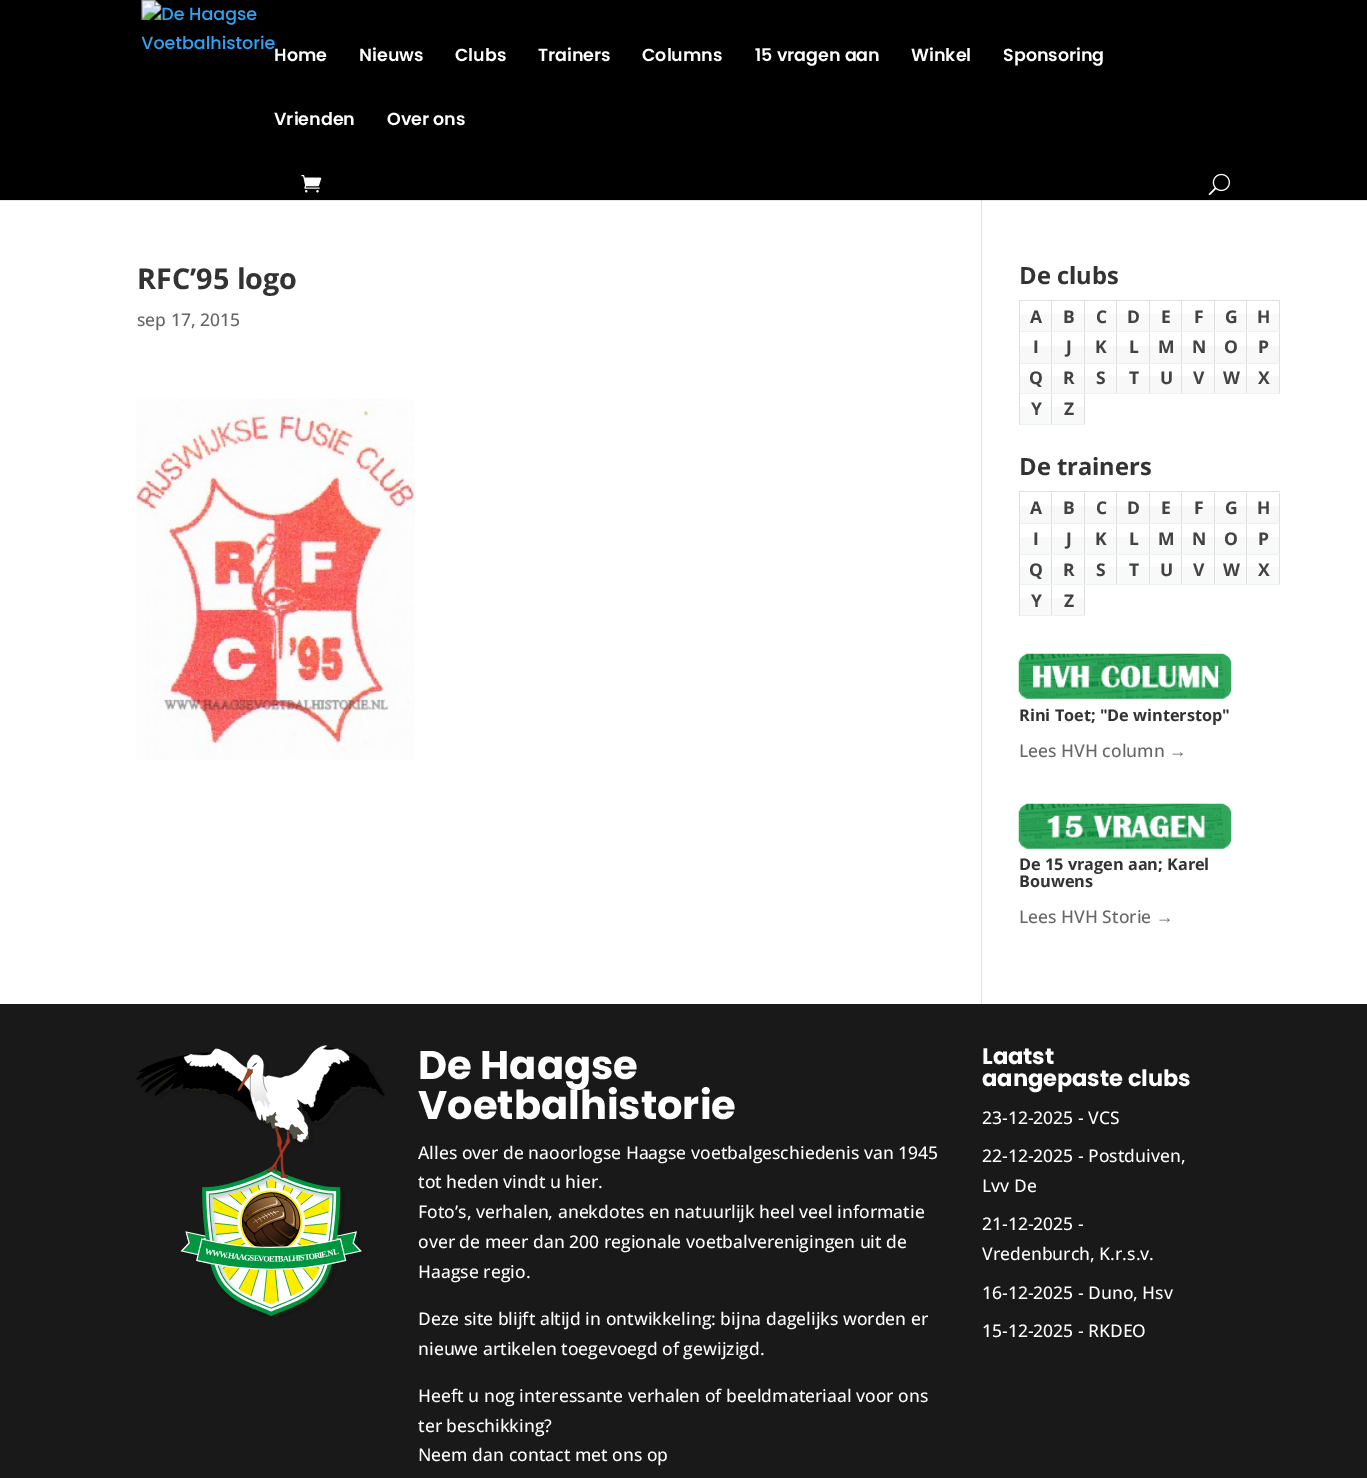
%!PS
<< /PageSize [1367 1478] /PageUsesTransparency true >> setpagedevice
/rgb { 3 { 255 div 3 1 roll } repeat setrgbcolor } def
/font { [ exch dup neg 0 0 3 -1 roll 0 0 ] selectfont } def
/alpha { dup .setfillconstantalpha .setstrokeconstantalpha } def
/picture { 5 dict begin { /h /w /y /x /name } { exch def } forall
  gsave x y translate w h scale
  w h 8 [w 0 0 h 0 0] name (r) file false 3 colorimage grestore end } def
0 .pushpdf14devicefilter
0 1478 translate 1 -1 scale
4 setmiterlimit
255 255 255 rgb
0 0 1367 1478 rectfill
226 226 226 rgb
981 200 1 804 rectfill
0.1 alpha
0 0 0 rgb
0 200 moveto 0 201 lineto 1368 201 lineto 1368 1 lineto 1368 200 lineto closepath fill
1 alpha
0 0 1367 200 rectfill
(img/1.rgb) 141 0 134 50 picture
(img/2.rgb) 301 175 21 18 picture
(img/3.rgb) 1208 173 22 23 picture
(img/4.rgb) 136 399 279 361 picture
[
  [1019 300 261 1 223 223 223]
  [1019 300 1 125 223 223 223]
  [1020 314 64 17 249 249 249]
  [1051 301 1 32 223 223 223]
  [1020 331 33 1 240 240 240]
  [1084 301 1 124 223 223 223]
  [1053 331 32 1 240 240 240]
  [1085 314 64 17 249 249 249]
  [1116 301 1 32 223 223 223]
  [1085 331 33 1 240 240 240]
  [1149 301 1 93 223 223 223]
  [1118 331 32 1 240 240 240]
  [1150 314 64 17 249 249 249]
  [1181 301 1 32 223 223 223]
  [1150 331 33 1 240 240 240]
  [1214 301 1 93 223 223 223]
  [1183 331 32 1 240 240 240]
  [1215 314 64 17 249 249 249]
  [1246 301 1 32 223 223 223]
  [1215 331 33 1 240 240 240]
  [1279 301 1 93 223 223 223]
  [1248 331 32 1 240 240 240]
  [1020 346 64 17 248 248 248]
  [1051 333 1 31 223 223 223]
  [1020 363 65 1 240 240 240]
  [1085 346 64 17 248 248 248]
  [1116 333 1 31 223 223 223]
  [1085 363 65 1 240 240 240]
  [1150 346 64 17 248 248 248]
  [1181 333 1 31 223 223 223]
  [1150 363 65 1 240 240 240]
  [1215 346 64 17 248 248 248]
  [1246 333 1 31 223 223 223]
  [1215 363 65 1 240 240 240]
  [1020 376 64 17 248 248 248]
  [1051 364 1 30 223 223 223]
  [1020 393 65 1 240 240 240]
  [1085 376 64 17 248 248 248]
  [1116 364 1 30 223 223 223]
  [1085 393 65 1 240 240 240]
  [1150 376 64 17 248 248 248]
  [1181 364 1 30 223 223 223]
  [1150 393 65 1 240 240 240]
  [1215 376 64 17 248 248 248]
  [1246 364 1 30 223 223 223]
  [1215 393 65 1 240 240 240]
  [1020 407 64 17 248 249 249]
  [1051 394 1 31 223 223 223]
  [1020 424 65 1 240 240 240]
  [1019 491 261 1 223 223 223]
  [1019 491 1 125 223 223 223]
  [1020 506 64 17 248 248 248]
  [1051 493 1 31 223 223 223]
  [1020 523 33 1 240 240 240]
  [1084 493 1 123 223 223 223]
  [1053 523 32 1 240 240 240]
  [1085 506 64 17 248 248 248]
  [1116 493 1 31 223 223 223]
  [1085 523 33 1 240 240 240]
  [1149 493 1 92 223 223 223]
  [1118 523 32 1 240 240 240]
  [1150 506 64 17 248 248 248]
  [1181 493 1 31 223 223 223]
  [1150 523 33 1 240 240 240]
  [1214 493 1 92 223 223 223]
  [1183 523 32 1 240 240 240]
  [1215 506 64 17 248 248 248]
  [1246 493 1 31 223 223 223]
  [1215 523 33 1 240 240 240]
  [1279 493 1 92 223 223 223]
  [1248 523 32 1 240 240 240]
  [1020 537 64 17 248 249 249]
  [1051 524 1 31 223 223 223]
  [1020 554 65 1 240 240 240]
  [1085 537 64 17 248 249 249]
  [1116 524 1 31 223 223 223]
  [1085 554 65 1 240 240 240]
  [1150 537 64 17 248 249 249]
  [1181 524 1 31 223 223 223]
  [1150 554 65 1 240 240 240]
  [1215 537 64 17 248 249 249]
  [1246 524 1 31 223 223 223]
  [1215 554 65 1 240 240 240]
  [1020 567 64 17 248 249 249]
  [1051 555 1 30 223 223 223]
  [1020 584 65 1 240 240 240]
  [1085 567 64 17 248 249 249]
  [1116 555 1 30 223 223 223]
  [1085 584 65 1 240 240 240]
  [1150 567 64 17 248 249 249]
  [1181 555 1 30 223 223 223]
  [1150 584 65 1 240 240 240]
  [1215 567 64 17 248 249 249]
  [1246 555 1 30 223 223 223]
  [1215 584 65 1 240 240 240]
  [1020 598 64 17 249 249 249]
  [1051 585 1 31 223 223 223]
  [1020 615 65 1 240 240 240]
] { aload pop rgb rectfill } forall
(img/5.rgb) 1018 653 214 46 picture
(img/6.rgb) 1018 803 214 46 picture
25 25 25 rgb
0 1004 1367 474 rectfill
(img/7.rgb) 136 1045 249 272 picture
/Poppins-SemiBold 17.5 font
255 255 255 rgb
[
  [(Home) 274 61]
  [(Nieuws) 359 61]
  [(Clubs) 455 61]
  [(Trainers) 538 61]
  [(Columns) 642 61]
  [(15 vragen aan) 755 61]
  [(Winkel) 911 61]
  [(Sponsoring) 1003 61]
  [(Vrienden) 274 125]
  [(Over ons) 387 125]
] { aload pop moveto show } forall
/OpenSans-Bold 28.75 font
51 51 51 rgb
137 289 moveto (RFC’95 logo) show
/OpenSans-Medium 17.5 font
102 102 102 rgb
137 326 moveto (sep 17, 2015) show
/OpenSans-Bold 23.75 font
51 51 51 rgb
1019 284 moveto (De clubs) show
/OpenSans-Bold 17.5 font
66 66 66 rgb
[
  [(A) 1030 323]
  [(B) 1063 323]
  [(C) 1096 323]
  [(D) 1127 323]
  [(E) 1161 323]
  [(F) 1194 323]
  [(G) 1225 323]
  [(H) 1257 323]
  [(I) 1033 353]
  [(J) 1066 353]
  [(K) 1095 353]
  [(L) 1129 353]
  [(M) 1158 353]
  [(N) 1192 353]
  [(O) 1224 353]
  [(P) 1258 353]
  [(Q) 1029 384]
  [(R) 1063 384]
  [(S) 1096 384]
  [(T) 1129 384]
  [(U) 1160 384]
  [(V) 1193 384]
  [(W) 1223 384]
  [(X) 1258 384]
  [(Y) 1031 415]
  [(Z) 1064 415]
] { aload pop moveto show } forall
/OpenSans-Bold 23.75 font
51 51 51 rgb
1019 475 moveto (De trainers) show
/OpenSans-Bold 17.5 font
66 66 66 rgb
[
  [(A) 1030 514]
  [(B) 1063 514]
  [(C) 1096 514]
  [(D) 1127 514]
  [(E) 1161 514]
  [(F) 1194 514]
  [(G) 1225 514]
  [(H) 1257 514]
  [(I) 1033 545]
  [(J) 1066 545]
  [(K) 1095 545]
  [(L) 1129 545]
  [(M) 1158 545]
  [(N) 1192 545]
  [(O) 1224 545]
  [(P) 1258 545]
  [(Q) 1029 576]
  [(R) 1063 576]
  [(S) 1096 576]
  [(T) 1129 576]
  [(U) 1160 576]
  [(V) 1193 576]
  [(W) 1223 576]
  [(X) 1258 576]
  [(Y) 1031 607]
  [(Z) 1064 607]
] { aload pop moveto show } forall
/OpenSans-Bold 16.25 font
51 51 51 rgb
1019 721 moveto (Rini Toet; "De winterstop") show
/OpenSans-Medium 17.5 font
102 102 102 rgb
1019 757 moveto (Lees HVH column) show
/LiberationSans-Regular 17.5 font
1169 757 moveto (→) show
/OpenSans-Bold 16.25 font
51 51 51 rgb
1019 870 moveto (De 15 vragen aan; Karel) show
1019 887 moveto (Bouwens) show
/OpenSans-Medium 17.5 font
102 102 102 rgb
1019 923 moveto (Lees HVH Storie) show
/LiberationSans-Regular 17.5 font
1156 923 moveto (→) show
/Poppins-Bold 40 font
255 255 255 rgb
418 1079 moveto (De Haagse) show
418 1119 moveto (Voetbalhistorie) show
/OpenSans-Medium 17.5 font
[
  [(Alles over de naoorlogse Haagse voetbalgeschiedenis van 1945) 418 1159]
  [(tot heden vindt u hier.) 418 1188]
  [(Foto’s, verhalen, anekdotes en natuurlijk heel veel informatie) 418 1218]
  [(over de meer dan 200 regionale voetbalverenigingen uit de) 418 1248]
  [(Haagse regio.) 418 1278]
  [(Deze site blijft altijd in ontwikkeling: bijna dagelijks worden er) 418 1325]
  [(nieuwe artikelen toegevoegd of gewijzigd.) 418 1355]
  [(Heeft u nog interessante verhalen of beeldmateriaal voor ons) 418 1402]
  [(ter beschikking?) 418 1432]
  [(Neem dan contact met ons op) 418 1461]
] { aload pop moveto show } forall
/Poppins-Bold 22.5 font
982 1064 moveto (Laatst) show
982 1086 moveto (aangepaste clubs) show
/OpenSans-Medium 17.5 font
[
  [(23-12-2025 - VCS) 982 1124]
  [(22-12-2025 - Postduiven,) 982 1162]
  [(Lvv De) 982 1192]
  [(21-12-2025 -) 982 1230]
  [(Vredenburch, K.r.s.v.) 982 1260]
  [(16-12-2025 - Duno, Hsv) 982 1299]
  [(15-12-2025 - RKDEO) 982 1337]
] { aload pop moveto show } forall
.poppdf14devicefilter showpage
